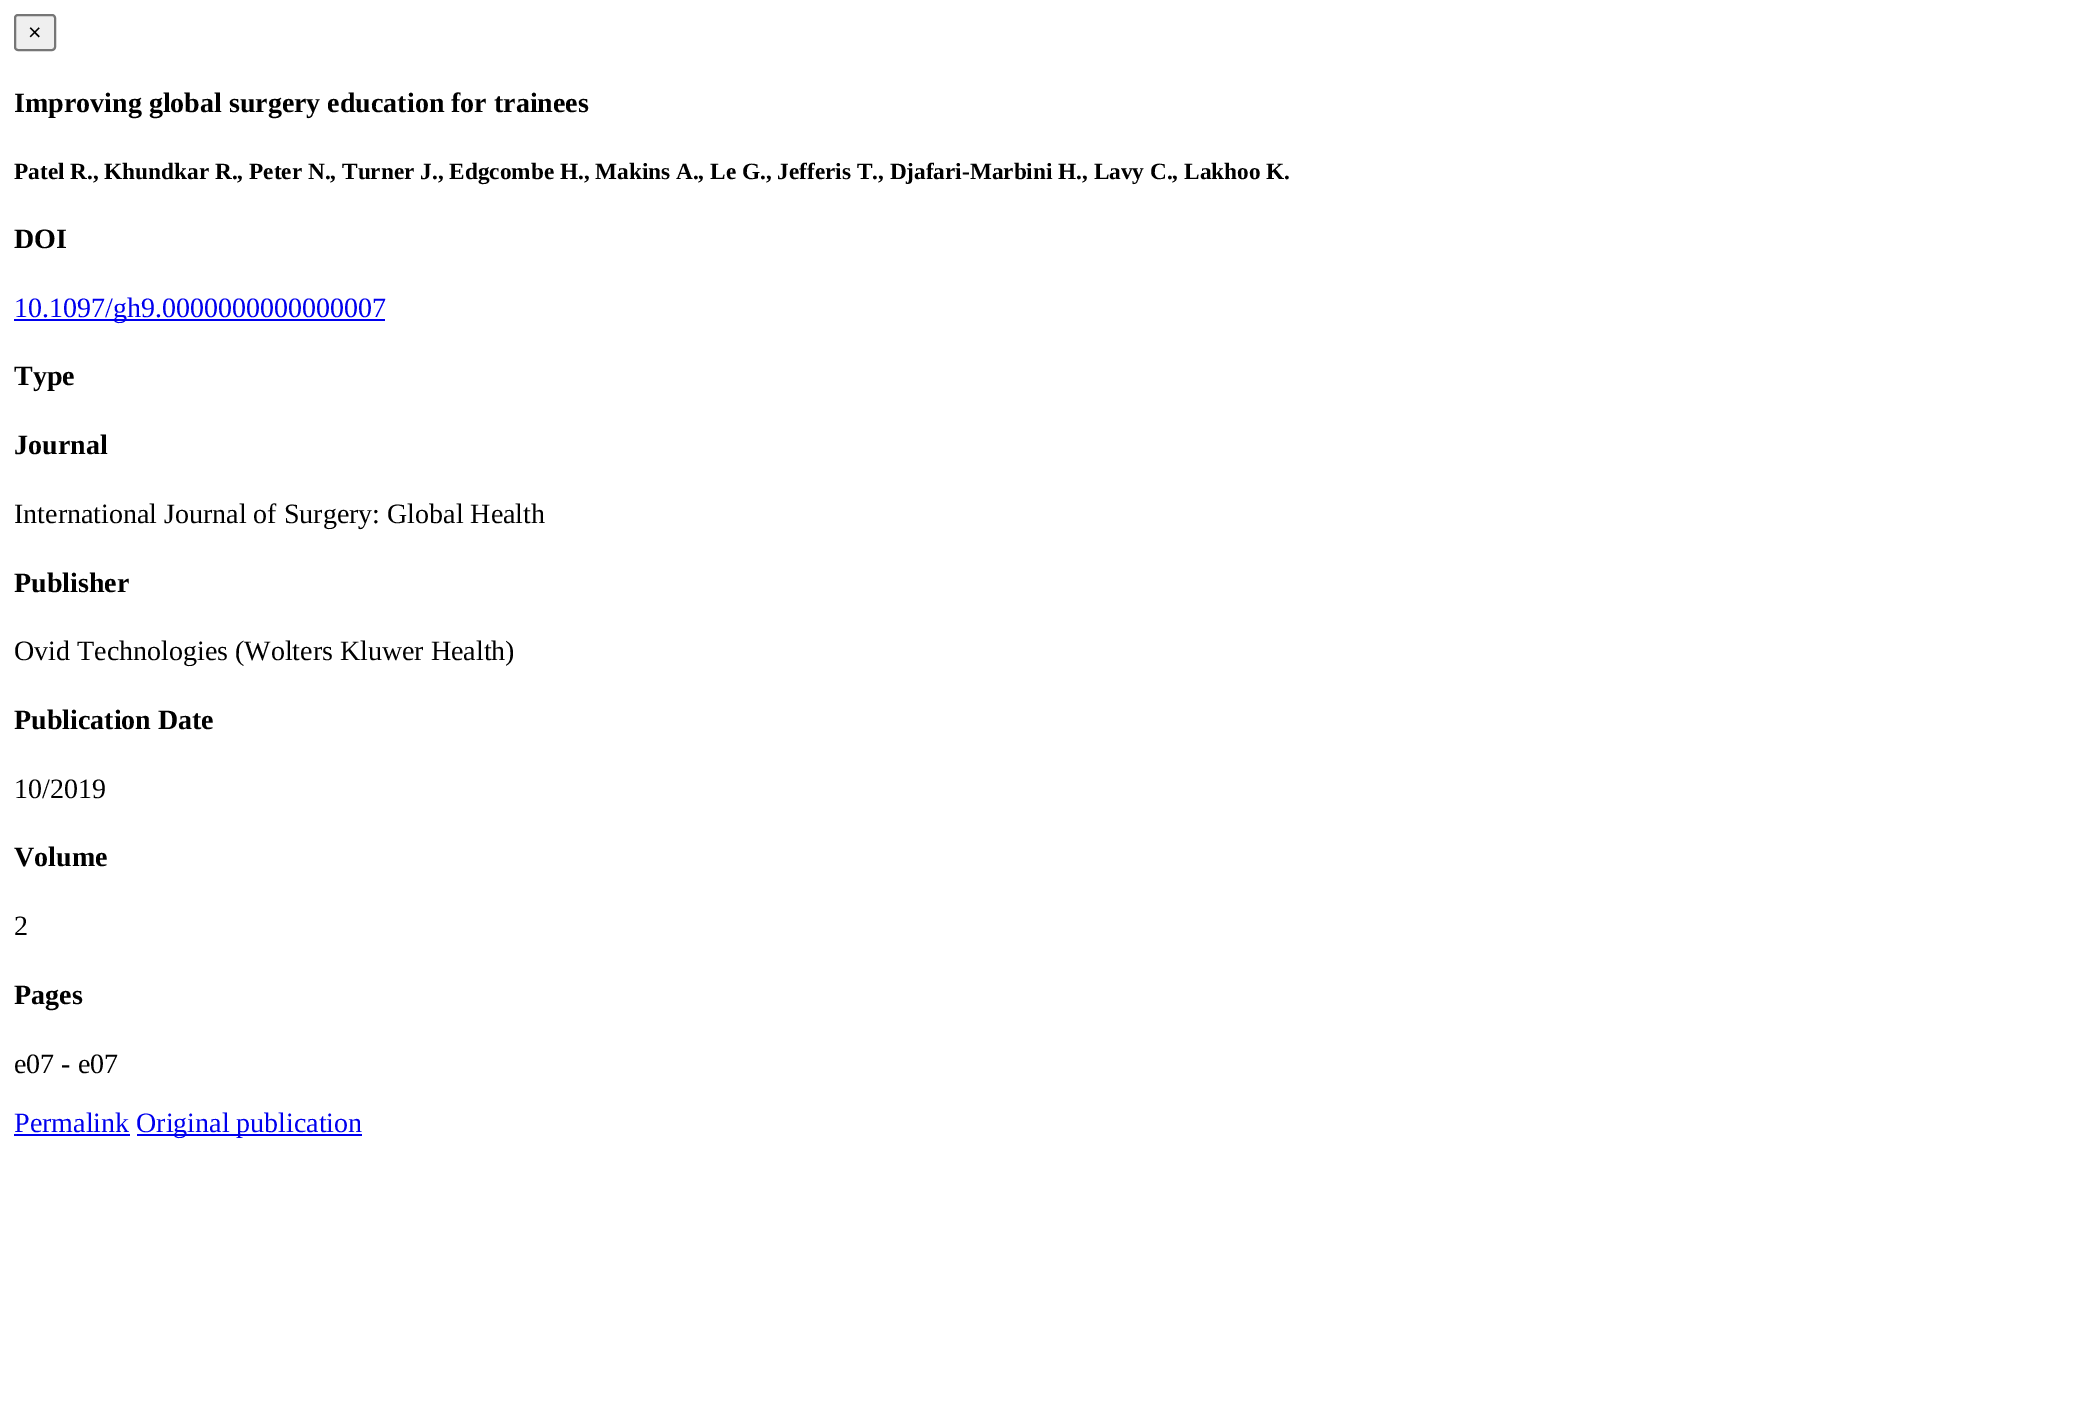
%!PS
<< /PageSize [2075 1421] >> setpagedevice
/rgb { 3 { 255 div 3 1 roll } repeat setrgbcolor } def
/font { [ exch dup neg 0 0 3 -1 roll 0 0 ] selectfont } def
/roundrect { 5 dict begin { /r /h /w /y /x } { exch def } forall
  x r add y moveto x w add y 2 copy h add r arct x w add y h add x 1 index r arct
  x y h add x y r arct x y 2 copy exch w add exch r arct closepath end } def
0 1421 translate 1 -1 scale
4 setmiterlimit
255 255 255 rgb
0 0 2075 1421 rectfill
239 239 239 rgb
15 15 40 35 3 roundrect gsave fill grestore
118 118 118 rgb
2 setlinewidth
stroke
[
  [14 319 371 2 0 0 238]
  [14 1134 116 2 0 0 238]
  [137 1134 225 2 0 0 238]
] { aload pop rgb rectfill } forall
/LiberationSans-Regular 23 font
0 0 0 rgb
28 40 moveto (×) show
/LiberationSerif-Bold 28 font
14 112 moveto (Improving global surgery education for trainees) show
/LiberationSerif-Bold 23.25 font
14 179 moveto (Patel R., Khundkar R., Peter N., Turner J., Edgcombe H., Makins A., Le G., Jefferis T., Djafari-Marbini H., Lavy C., Lakhoo K.) show
/LiberationSerif-Bold 28 font
14 248 moveto (DOI) show
/LiberationSerif-Regular 28 font
0 0 238 rgb
14 317 moveto (10.1097/gh9.0000000000000007) show
/LiberationSerif-Bold 28 font
0 0 0 rgb
14 385 moveto (Type) show
14 454 moveto (Journal) show
/LiberationSerif-Regular 28 font
14 523 moveto (International Journal of Surgery: Global Health) show
/LiberationSerif-Bold 28 font
14 592 moveto (Publisher) show
/LiberationSerif-Regular 28 font
14 660 moveto (Ovid Technologies \(Wolters Kluwer Health\)) show
/LiberationSerif-Bold 28 font
14 729 moveto (Publication Date) show
/LiberationSerif-Regular 28 font
14 798 moveto (10/2019) show
/LiberationSerif-Bold 28 font
14 866 moveto (Volume) show
/LiberationSerif-Regular 28 font
14 935 moveto (2) show
/LiberationSerif-Bold 28 font
14 1004 moveto (Pages) show
/LiberationSerif-Regular 28 font
14 1073 moveto (e07 - e07) show
0 0 238 rgb
14 1132 moveto (Permalink) show
136 1132 moveto (Original publication) show
showpage
